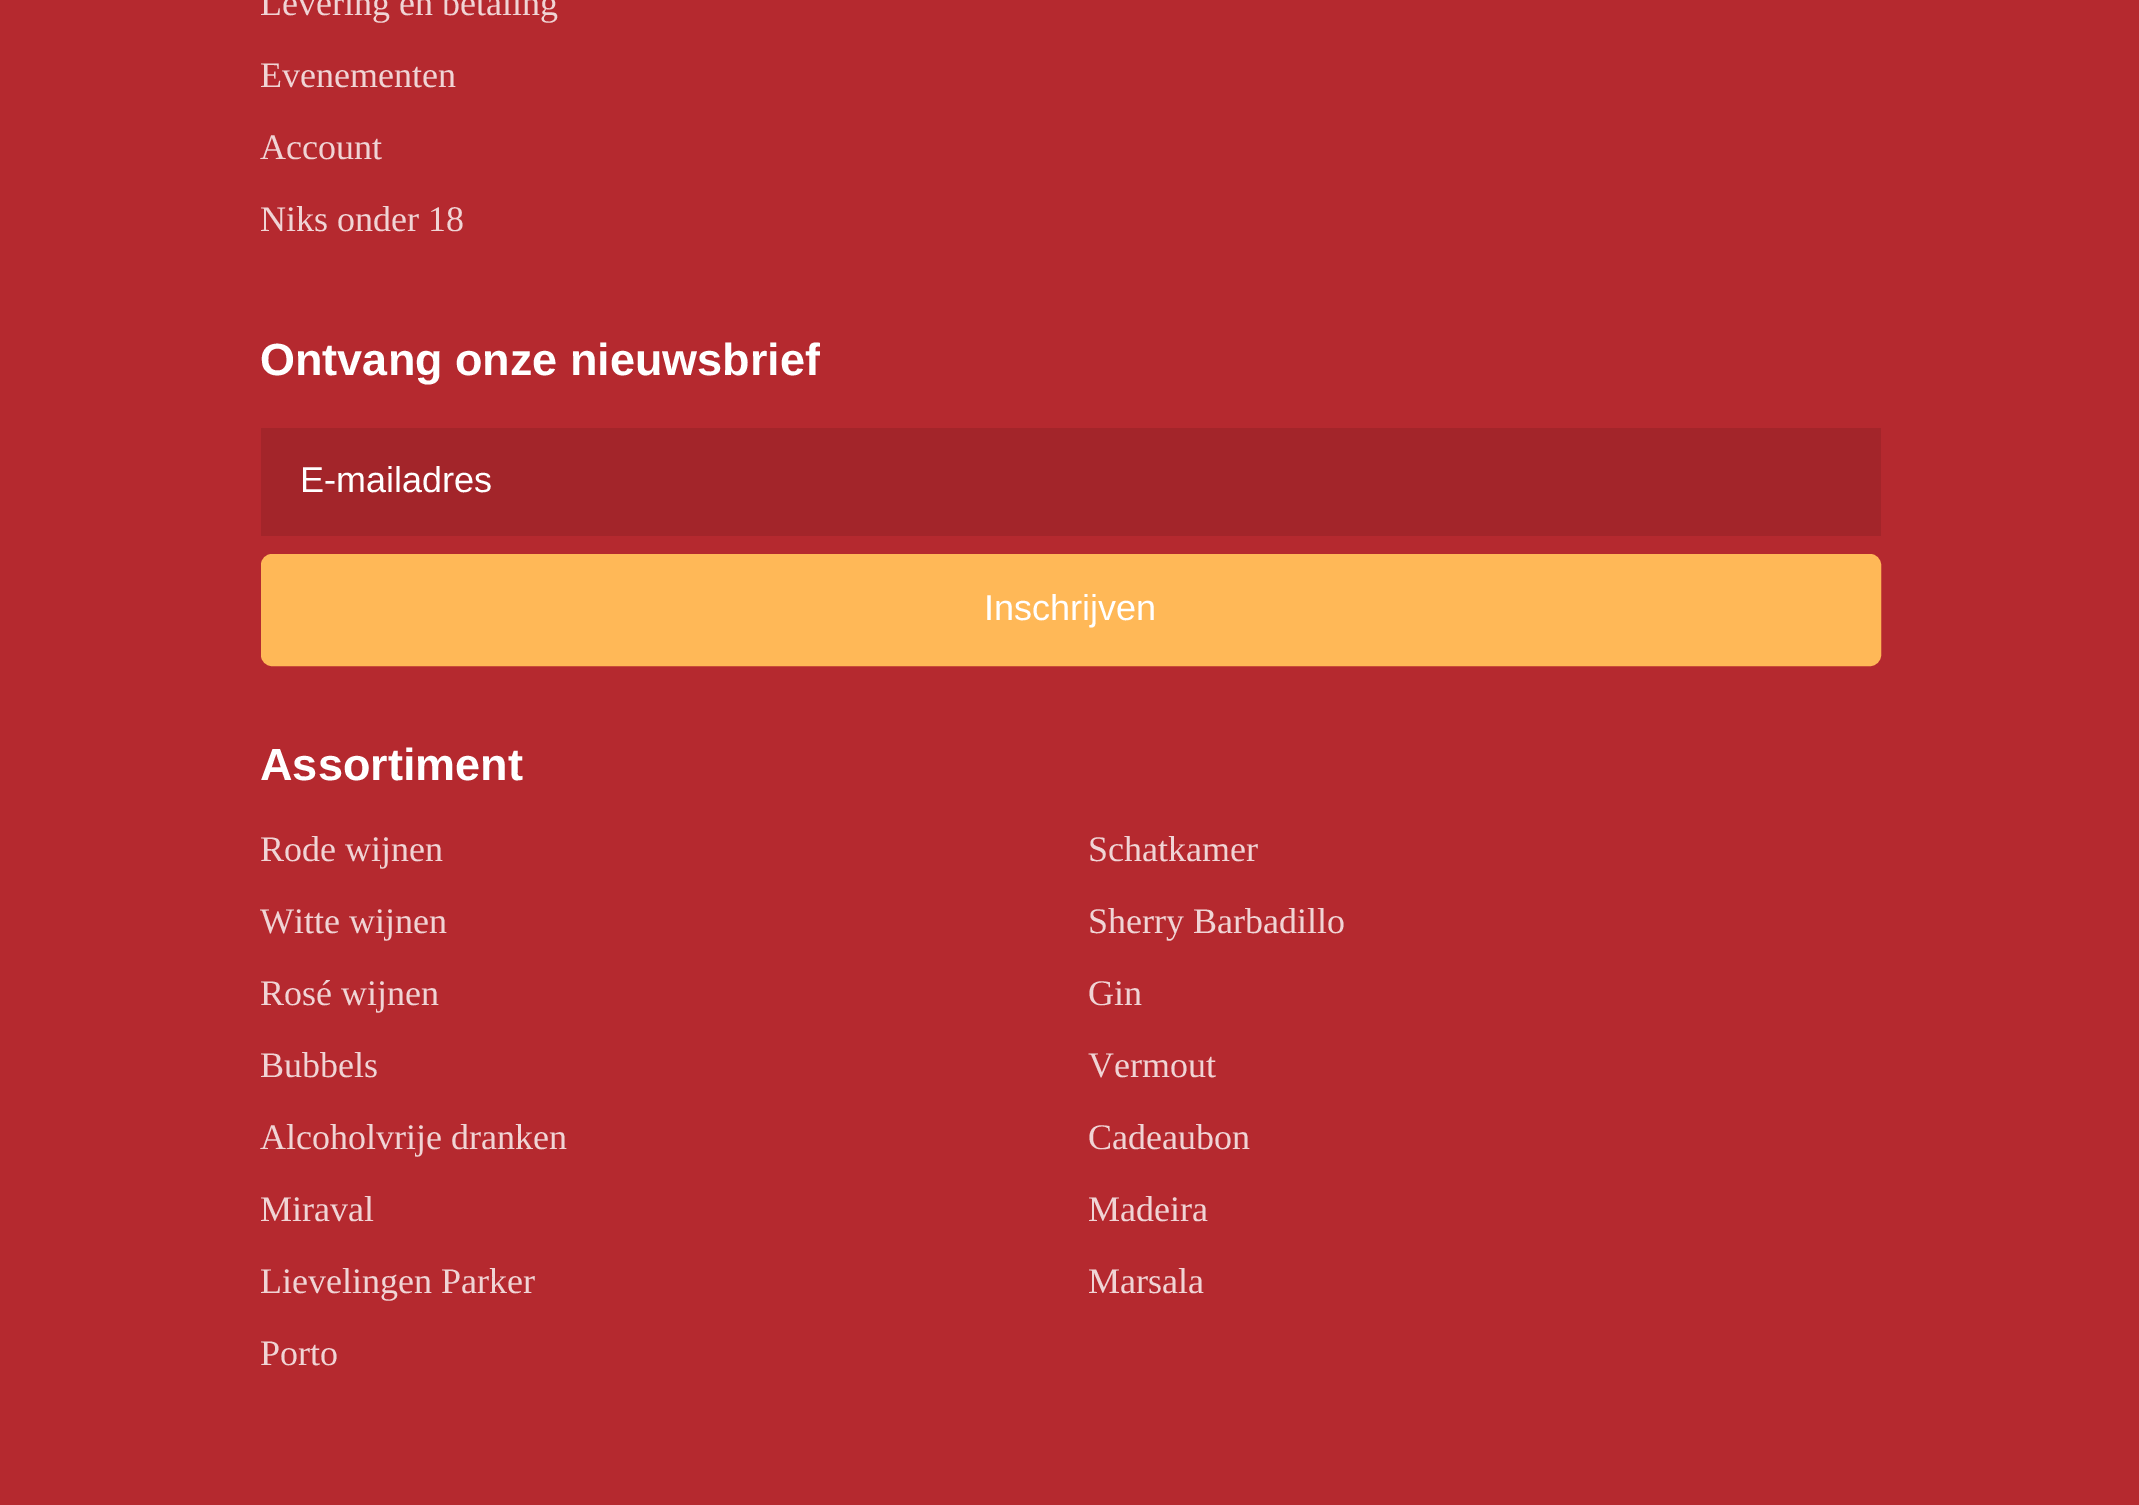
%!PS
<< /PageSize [2139 1505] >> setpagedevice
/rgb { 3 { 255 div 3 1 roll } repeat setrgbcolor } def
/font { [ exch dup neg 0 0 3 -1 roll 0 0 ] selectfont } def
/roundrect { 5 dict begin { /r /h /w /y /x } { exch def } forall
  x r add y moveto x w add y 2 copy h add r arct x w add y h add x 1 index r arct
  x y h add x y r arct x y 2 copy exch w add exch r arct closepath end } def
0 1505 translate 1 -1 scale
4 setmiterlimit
181 41 47 rgb
0 0 2139 1505 rectfill
163 37 42 rgb
261 428 1620 108 rectfill
255 184 87 rgb
262 555 1618 110 10 roundrect gsave fill grestore
2 setlinewidth
stroke
/LiberationSerif-Regular 36 font
240 212 213 rgb
[
  [(Levering en betaling) 260 15]
  [(Evenementen) 260 87]
  [(Account) 260 159]
  [(Niks onder 18) 260 231]
] { aload pop moveto show } forall
/LiberationSans-Bold 45 font
255 255 255 rgb
260 375 moveto (Ontvang onze nieuwsbrief) show
/LiberationSans-Regular 36 font
300 492 moveto (E-mailadres) show
984 620 moveto (Inschrijven) show
/LiberationSans-Bold 45 font
260 780 moveto (Assortiment) show
/LiberationSerif-Regular 36 font
240 212 213 rgb
[
  [(Rode wijnen) 260 861]
  [(Schatkamer) 1088 861]
  [(Witte wijnen) 260 933]
  [(Sherry Barbadillo) 1088 933]
  [(Rosé wijnen) 260 1005]
  [(Gin) 1088 1005]
  [(Bubbels) 260 1077]
  [(Vermout) 1088 1077]
  [(Alcoholvrije dranken) 260 1149]
  [(Cadeaubon) 1088 1149]
  [(Miraval) 260 1221]
  [(Madeira) 1088 1221]
  [(Lievelingen Parker) 260 1293]
  [(Marsala) 1088 1293]
  [(Porto) 260 1365]
] { aload pop moveto show } forall
showpage
